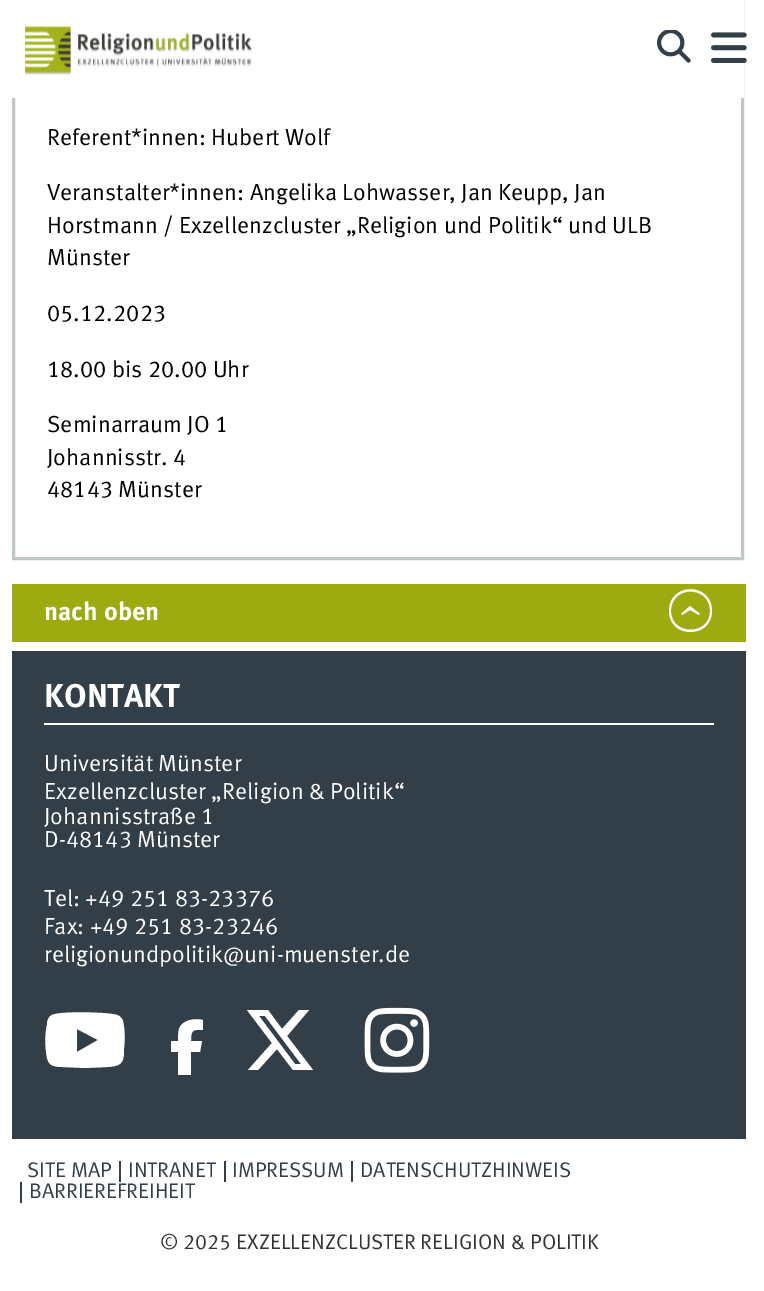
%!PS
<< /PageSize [764 1291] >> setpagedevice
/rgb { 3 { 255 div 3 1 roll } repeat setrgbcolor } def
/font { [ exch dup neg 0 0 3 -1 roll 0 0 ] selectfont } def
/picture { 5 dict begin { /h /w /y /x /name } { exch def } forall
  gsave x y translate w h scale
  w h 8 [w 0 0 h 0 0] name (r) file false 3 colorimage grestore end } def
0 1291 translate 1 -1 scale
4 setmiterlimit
255 255 255 rgb
0 0 764 1291 rectfill
190 198 200 rgb
3 setlinewidth
13.5 -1.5 729 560 rectstroke
255 255 255 rgb
12 0 732 98 rectfill
(img/1.rgb) 25 26 227 49 picture
(img/2.rgb) 657 30 34 33 picture
(img/3.rgb) 711 32 36 31 picture
158 171 16 rgb
12 584 734 58 rectfill
255 255 255 rgb
669 611 moveto 669 582 712 582 712 611 curveto 712 639 669 639 669 611 curveto closepath 671 611 moveto 671 636 710 636 710 611 curveto 710 585 671 585 671 611 curveto closepath 681 614 moveto 690 606 lineto 700 614 lineto 699 615 lineto 690 610 lineto 682 615 lineto closepath fill
51 63 72 rgb
12 651 734 488 rectfill
255 255 255 rgb
44 723 670 2 rectfill
123 1021 moveto 125 1030 125 1039 124 1048 curveto 124 1062 123 1066 107 1067 curveto 85 1068 lineto 63 1067 lineto 50 1067 47 1064 46 1051 curveto 45 1043 45 1033 47 1025 curveto 47 1021 48 1017 52 1015 curveto 59 1011 109 1012 117 1015 curveto 120 1016 122 1018 123 1021 curveto closepath 77 1052 moveto 98 1040 lineto 77 1029 lineto closepath fill
178 1052 moveto 171 1052 lineto 171 1041 lineto 178 1041 lineto 178 1037 178 1033 179 1029 curveto 182 1020 194 1018 203 1020 curveto 203 1030 lineto 192 1029 191 1031 191 1041 curveto 202 1041 lineto 200 1052 lineto 191 1052 lineto 191 1075 lineto 178 1075 lineto closepath fill
299 1010 moveto 282 1029 lineto 268 1010 lineto 247 1010 lineto 272 1043 lineto 248 1070 lineto 258 1070 lineto 277 1049 lineto 293 1070 lineto 313 1070 lineto 287 1036 lineto 309 1010 lineto closepath 295 1064 moveto 259 1016 lineto 265 1016 lineto 301 1064 lineto closepath fill
(img/4.rgb) 364 1007 66 66 picture
[
  [119 1161 2 21 51 63 72]
  [224 1161 2 21 51 63 72]
  [351 1161 2 21 51 63 72]
  [20 1182 2 21 51 63 72]
] { aload pop rgb rectfill } forall
/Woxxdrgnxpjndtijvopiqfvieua-Regular 23.2 font
0 0 0 rgb
[
  [(Referent*innen: Hubert Wolf) 47 145]
  [(Veranstalter*innen: Angelika Lohwasser, Jan Keupp, Jan) 47 200]
  [(Horstmann / Exzellenzcluster „Religion und Politik“ und ULB) 47 233]
  [(Münster) 47 265]
  [(05.12.2023) 47 321]
  [(18.00 bis 20.00 Uhr) 47 377]
  [(Seminarraum JO 1) 47 432]
  [(Johannisstr. 4) 47 465]
  [(48143 Münster) 47 497]
] { aload pop moveto show } forall
/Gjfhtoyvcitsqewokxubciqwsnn-Bold 25.5 font
255 255 255 rgb
44 620 moveto (nach oben) show
/Gjfhtoyvcitsqewokxubciqwsnn-Bold 33 font
44 707 moveto (KONTAKT) show
/Woxxdrgnxpjndtijvopiqfvieua-Regular 23.2 font
[
  [(Universität Münster) 44 771]
  [(Exzellenzcluster „Religion & Politik“) 44 799]
  [(Johannisstraße 1) 44 824]
  [(D-48143 Münster) 44 847]
  [(Tel: +49 251 83-23376) 44 906]
  [(Fax: +49 251 83-23246) 44 934]
  [(religionundpolitik@uni-muenster.de) 44 962]
] { aload pop moveto show } forall
/Woxxdrgnxpjndtijvopiqfvieua-Regular 21.1 font
51 63 72 rgb
[
  [(SITE MAP) 27 1177]
  [(INTRANET) 128 1177]
  [(IMPRESSUM) 232 1177]
  [(DATENSCHUTZHINWEIS) 360 1177]
  [(BARRIEREFREIHEIT) 29 1198]
] { aload pop moveto show } forall
51 51 51 rgb
160 1249 moveto (© 2025 EXZELLENZCLUSTER RELIGION & POLITIK) show
showpage
